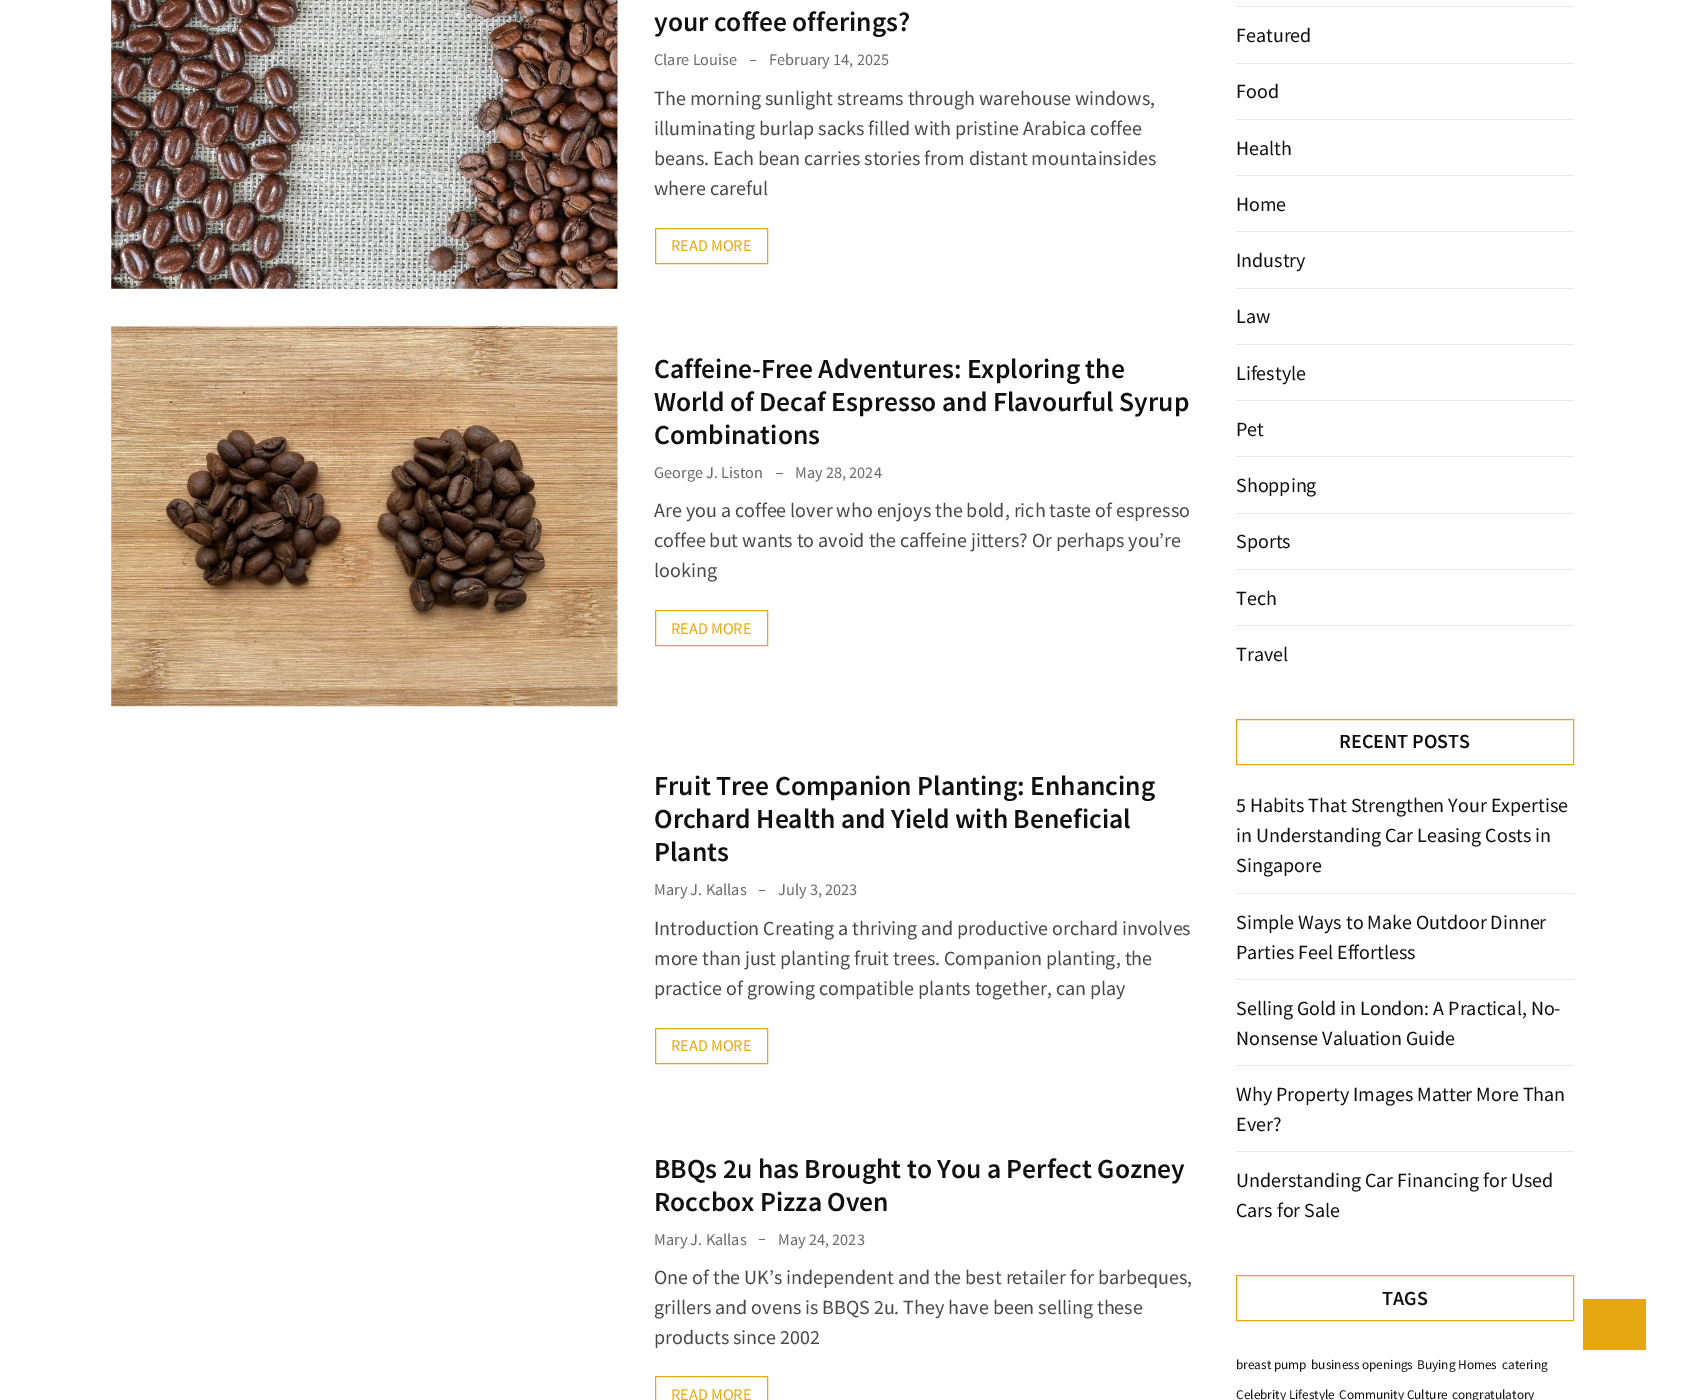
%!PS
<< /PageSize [1683 1400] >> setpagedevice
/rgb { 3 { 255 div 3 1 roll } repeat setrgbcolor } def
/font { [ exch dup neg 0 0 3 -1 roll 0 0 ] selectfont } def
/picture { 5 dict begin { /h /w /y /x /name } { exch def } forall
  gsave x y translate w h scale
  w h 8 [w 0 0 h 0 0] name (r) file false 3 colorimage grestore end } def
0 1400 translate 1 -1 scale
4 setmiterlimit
255 255 255 rgb
0 0 1683 1400 rectfill
(img/1.rgb) 111 0 507 289 picture
106 106 106 rgb
750 60 6 1 rectfill
229 168 18 rgb
655.5 228.5 112 35 rectstroke
(img/2.rgb) 111 326 507 381 picture
106 106 106 rgb
776 473 7 1 rectfill
229 168 18 rgb
655.5 610.5 112 35 rectstroke
106 106 106 rgb
759 890 6 1 rectfill
229 168 18 rgb
655.5 1028.5 112 35 rectstroke
106 106 106 rgb
759 1239 6 1 rectfill
229 168 18 rgb
655.5 1376.5 112 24 rectstroke
[
  [1236 6 338 1 232 232 232]
  [1236 63 338 1 232 232 232]
  [1236 119 338 1 232 232 232]
  [1236 175 338 1 232 232 232]
  [1236 231 338 1 232 232 232]
  [1236 288 338 1 232 232 232]
  [1236 344 338 1 232 232 232]
  [1236 400 338 1 232 232 232]
  [1236 456 338 1 232 232 232]
  [1236 513 338 1 232 232 232]
  [1236 569 338 1 232 232 232]
  [1236 625 338 1 232 232 232]
] { aload pop rgb rectfill } forall
229 168 18 rgb
1236.5 719.5 337 45 rectstroke
[
  [1236 893 338 1 232 232 232]
  [1236 979 338 1 232 232 232]
  [1236 1065 338 1 232 232 232]
  [1236 1151 338 1 232 232 232]
] { aload pop rgb rectfill } forall
229 168 18 rgb
1236.5 1275.5 337 45 rectstroke
1583 1299 63 51 rectfill
/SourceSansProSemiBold-SemiBold 27.5 font
16 16 16 rgb
654 31 moveto (your coffee offerings?) show
/SourceSansPro-Regular 16.25 font
106 106 106 rgb
654 65 moveto (Clare Louise) show
769 65 moveto (February 14, 2025) show
/SourceSansPro-Regular 20 font
72 72 72 rgb
[
  [(The morning sunlight streams through warehouse windows,) 654 105]
  [(illuminating burlap sacks filled with pristine Arabica coffee) 654 135]
  [(beans. Each bean carries stories from distant mountainsides) 654 165]
  [(where careful) 654 195]
] { aload pop moveto show } forall
/SourceSansPro-Regular 16.25 font
229 168 18 rgb
671 251 moveto (READ MORE) show
/SourceSansProSemiBold-SemiBold 27.5 font
16 16 16 rgb
[
  [(Caffeine-Free Adventures: Exploring the) 654 378]
  [(World of Decaf Espresso and Flavourful Syrup) 654 411]
  [(Combinations) 654 444]
] { aload pop moveto show } forall
/SourceSansPro-Regular 16.25 font
106 106 106 rgb
654 478 moveto (George J. Liston) show
795 478 moveto (May 28, 2024) show
/SourceSansPro-Regular 20 font
72 72 72 rgb
[
  [(Are you a coffee lover who enjoys the bold, rich taste of espresso) 654 517]
  [(coffee but wants to avoid the caffeine jitters? Or perhaps you’re) 654 547]
  [(looking) 654 577]
] { aload pop moveto show } forall
/SourceSansPro-Regular 16.25 font
229 168 18 rgb
671 634 moveto (READ MORE) show
/SourceSansProSemiBold-SemiBold 27.5 font
16 16 16 rgb
[
  [(Fruit Tree Companion Planting: Enhancing) 654 795]
  [(Orchard Health and Yield with Beneficial) 654 828]
  [(Plants) 654 861]
] { aload pop moveto show } forall
/SourceSansPro-Regular 16.25 font
106 106 106 rgb
654 895 moveto (Mary J. Kallas) show
778 895 moveto (July 3, 2023) show
/SourceSansPro-Regular 20 font
72 72 72 rgb
[
  [(Introduction Creating a thriving and productive orchard involves) 654 935]
  [(more than just planting fruit trees. Companion planting, the) 654 965]
  [(practice of growing compatible plants together, can play) 654 995]
] { aload pop moveto show } forall
/SourceSansPro-Regular 16.25 font
229 168 18 rgb
671 1051 moveto (READ MORE) show
/SourceSansProSemiBold-SemiBold 27.5 font
16 16 16 rgb
654 1178 moveto (BBQs 2u has Brought to You a Perfect Gozney) show
654 1211 moveto (Roccbox Pizza Oven) show
/SourceSansPro-Regular 16.25 font
106 106 106 rgb
654 1245 moveto (Mary J. Kallas) show
778 1245 moveto (May 24, 2023) show
/SourceSansPro-Regular 20 font
72 72 72 rgb
[
  [(One of the UK’s independent and the best retailer for barbeques,) 654 1284]
  [(grillers and ovens is BBQS 2u. They have been selling these) 654 1314]
  [(products since 2002) 654 1344]
] { aload pop moveto show } forall
/SourceSansPro-Regular 16.25 font
229 168 18 rgb
671 1400 moveto (READ MORE) show
/SourceSansPro-Regular 20 font
16 16 16 rgb
[
  [(Featured) 1236 42]
  [(Food) 1236 98]
  [(Health) 1236 155]
  [(Home) 1236 211]
  [(Industry) 1236 267]
  [(Law) 1236 323]
  [(Lifestyle) 1236 380]
  [(Pet) 1236 436]
  [(Shopping) 1236 492]
  [(Sports) 1236 548]
  [(Tech) 1236 605]
  [(Travel) 1236 661]
] { aload pop moveto show } forall
/SourceSansProSemiBold-SemiBold 20 font
1339 748 moveto (RECENT POSTS) show
/SourceSansPro-Regular 20 font
[
  [(5 Habits That Strengthen Your Expertise) 1236 812]
  [(in Understanding Car Leasing Costs in) 1236 842]
  [(Singapore) 1236 872]
  [(Simple Ways to Make Outdoor Dinner) 1236 929]
  [(Parties Feel Effortless) 1236 959]
  [(Selling Gold in London: A Practical, No-) 1236 1015]
  [(Nonsense Valuation Guide) 1236 1045]
  [(Why Property Images Matter More Than) 1236 1101]
  [(Ever?) 1236 1131]
  [(Understanding Car Financing for Used) 1236 1187]
  [(Cars for Sale) 1236 1217]
] { aload pop moveto show } forall
/SourceSansProSemiBold-SemiBold 20 font
1382 1305 moveto (TAGS) show
/SourceSansPro-Regular 13.25 font
[
  [(breast pump) 1236 1369]
  [(business openings) 1311 1369]
  [(Buying Homes) 1417 1369]
  [(catering) 1502 1369]
  [(Celebrity Lifestyle) 1236 1399]
  [(Community Culture) 1339 1399]
  [(congratulatory) 1452 1399]
] { aload pop moveto show } forall
showpage
